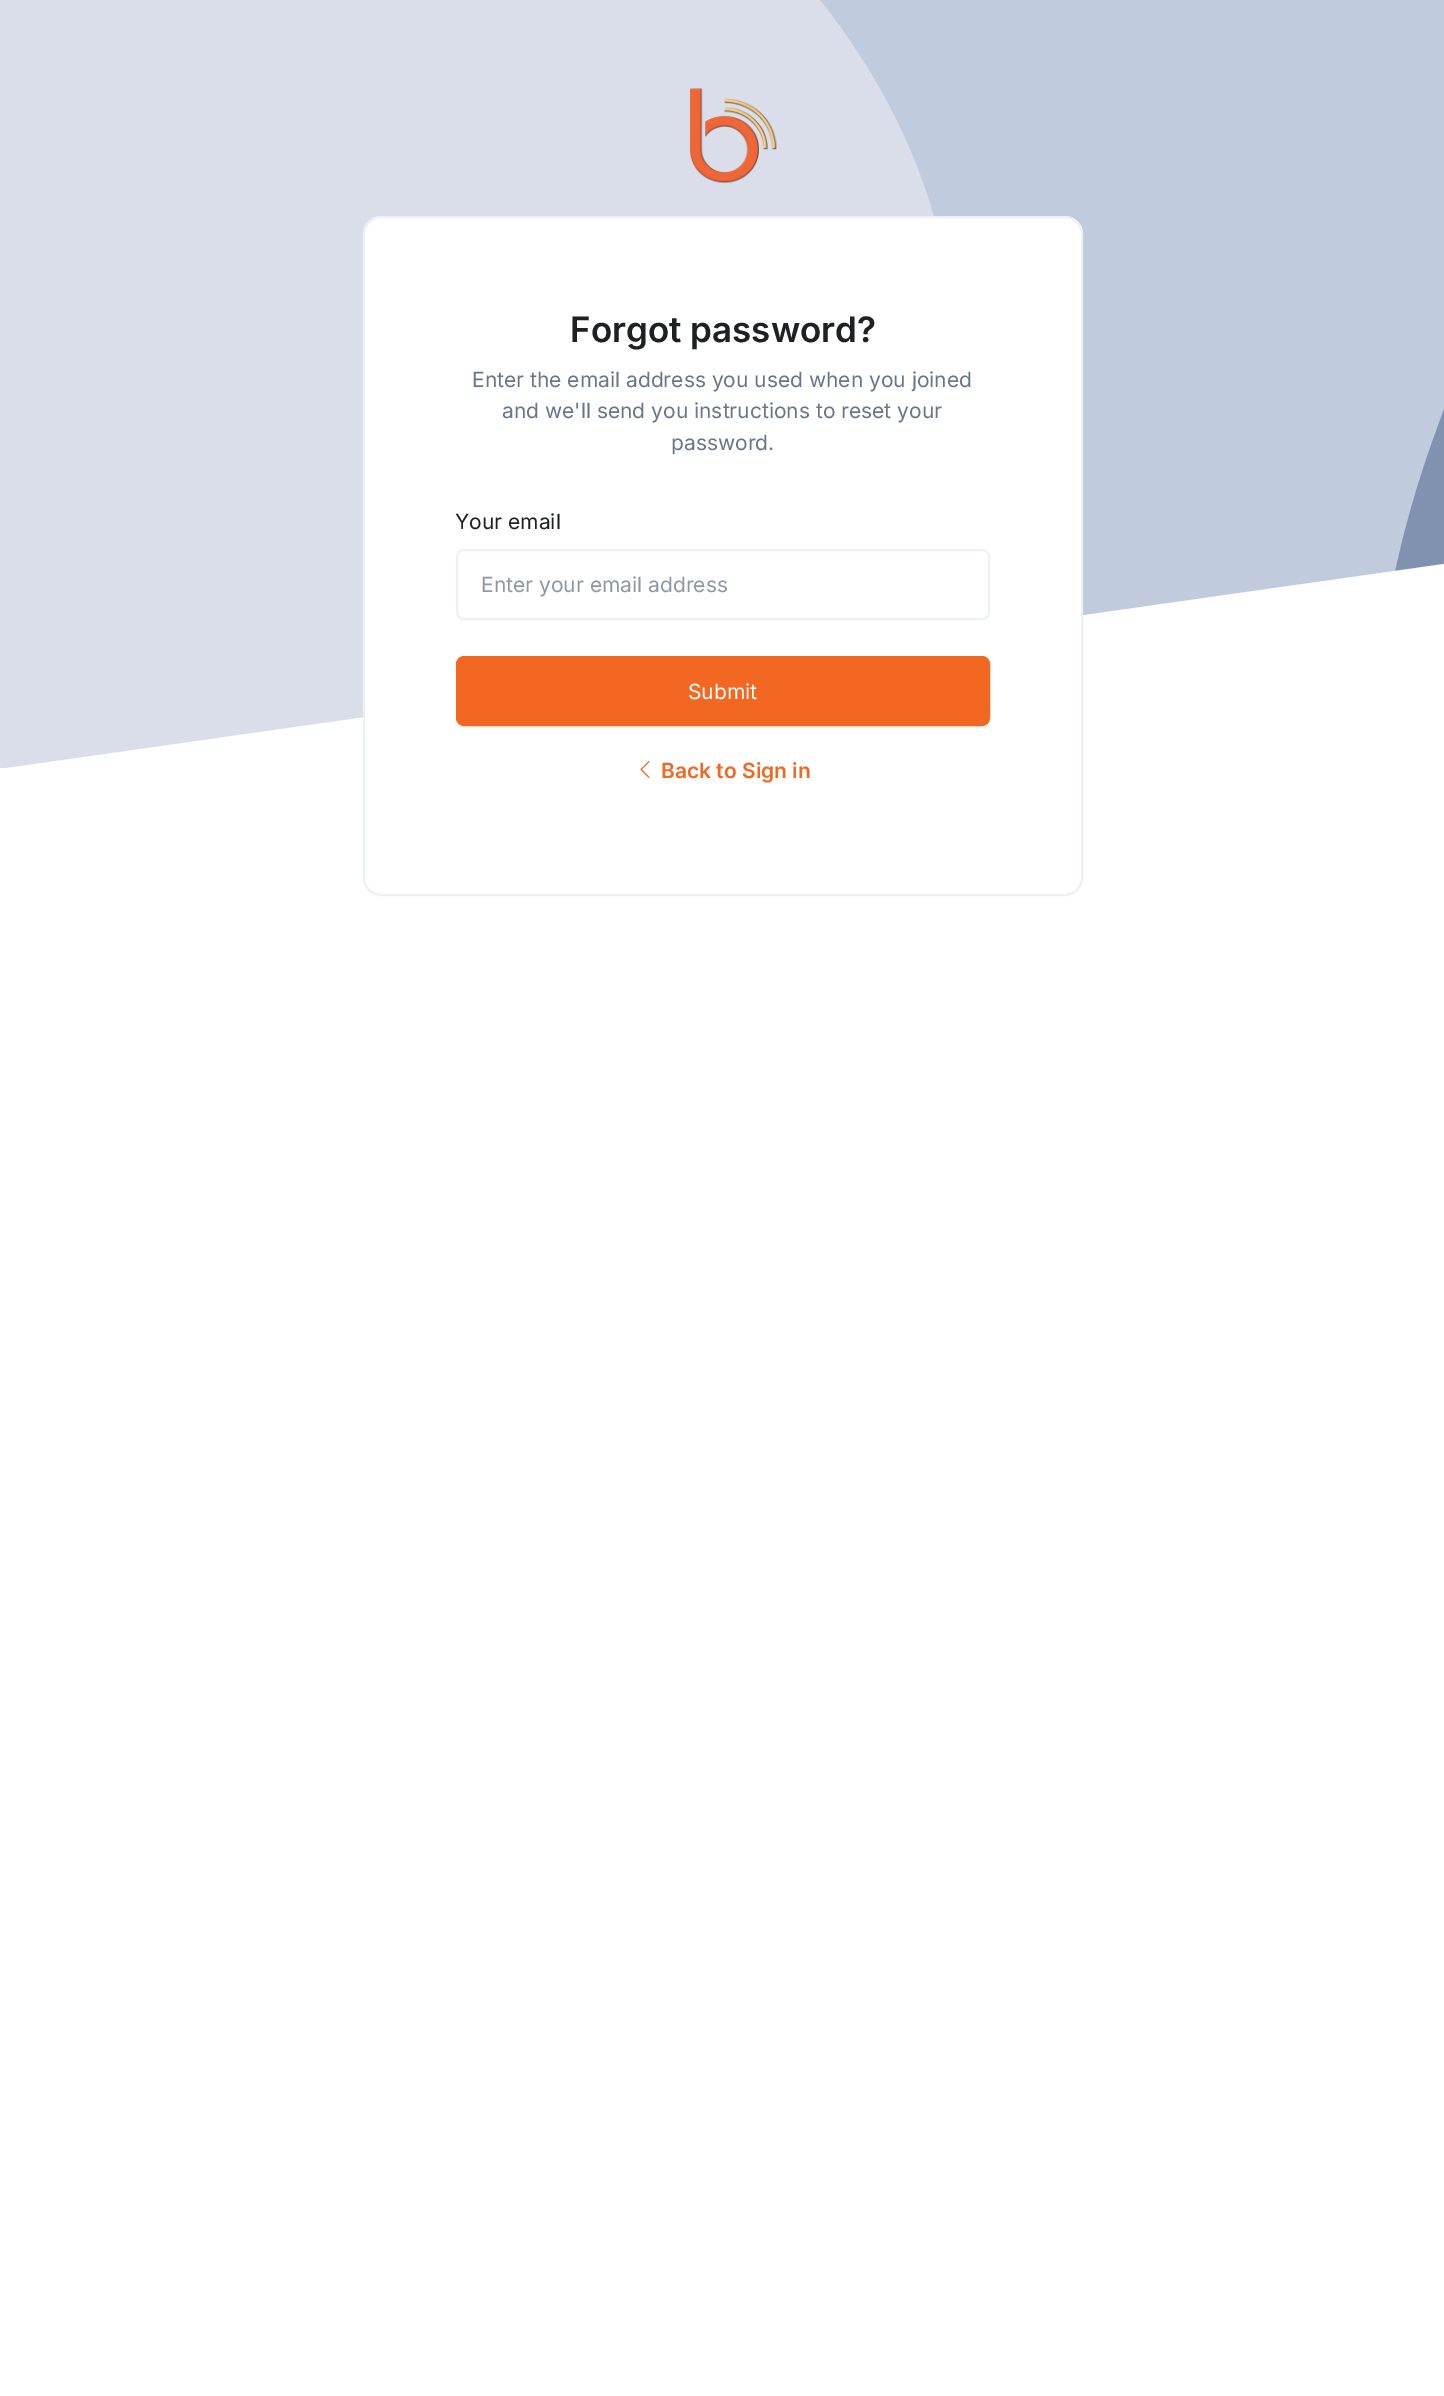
%!PS
<< /PageSize [1444 2396] /PageUsesTransparency true >> setpagedevice
/rgb { 3 { 255 div 3 1 roll } repeat setrgbcolor } def
/font { [ exch dup neg 0 0 3 -1 roll 0 0 ] selectfont } def
/alpha { dup .setfillconstantalpha .setstrokeconstantalpha } def
/roundrect { 5 dict begin { /r /h /w /y /x } { exch def } forall
  x r add y moveto x w add y 2 copy h add r arct x w add y h add x 1 index r arct
  x y h add x y r arct x y 2 copy exch w add exch r arct closepath end } def
/picture { 5 dict begin { /h /w /y /x /name } { exch def } forall
  gsave x y translate w h scale
  w h 8 [w 0 0 h 0 0] name (r) file false 3 colorimage grestore end } def
0 .pushpdf14devicefilter
0 2396 translate 1 -1 scale
4 setmiterlimit
255 255 255 rgb
0 0 1444 2396 rectfill
(img/1.rgb) 0 0 1444 768 picture
0 769 moveto 1444 769 lineto 1444 564 lineto closepath fill
(img/2.rgb) 689 88 88 96 picture
363 216 720 680 18 roundrect fill
0.7 alpha
231 234 243 rgb
2 setlinewidth
364 217 718 678 17 roundrect stroke
1 alpha
238 240 247 rgb
457 550 532 69 7 roundrect stroke
242 104 34 rgb
457 657 532 68 7 roundrect gsave fill grestore
stroke
(img/3.rgb) 640 761 10 17 picture
/Inter-SemiBold 35 font
30 32 34 rgb
570 342 moveto (Forgot password?) show
/Inter-Regular 21 font
103 119 136 rgb
[
  [(Enter the email address you used when you joined) 472 387]
  [(and we'll send you instructions to reset your) 502 418]
  [(password.) 671 450]
] { aload pop moveto show } forall
30 32 34 rgb
455 529 moveto (Your email) show
140 152 164 rgb
481 592 moveto (Enter your email address) show
255 255 255 rgb
688 699 moveto (Submit) show
/Inter-SemiBold 21 font
242 104 34 rgb
661 778 moveto (Back to Sign in) show
.poppdf14devicefilter showpage
